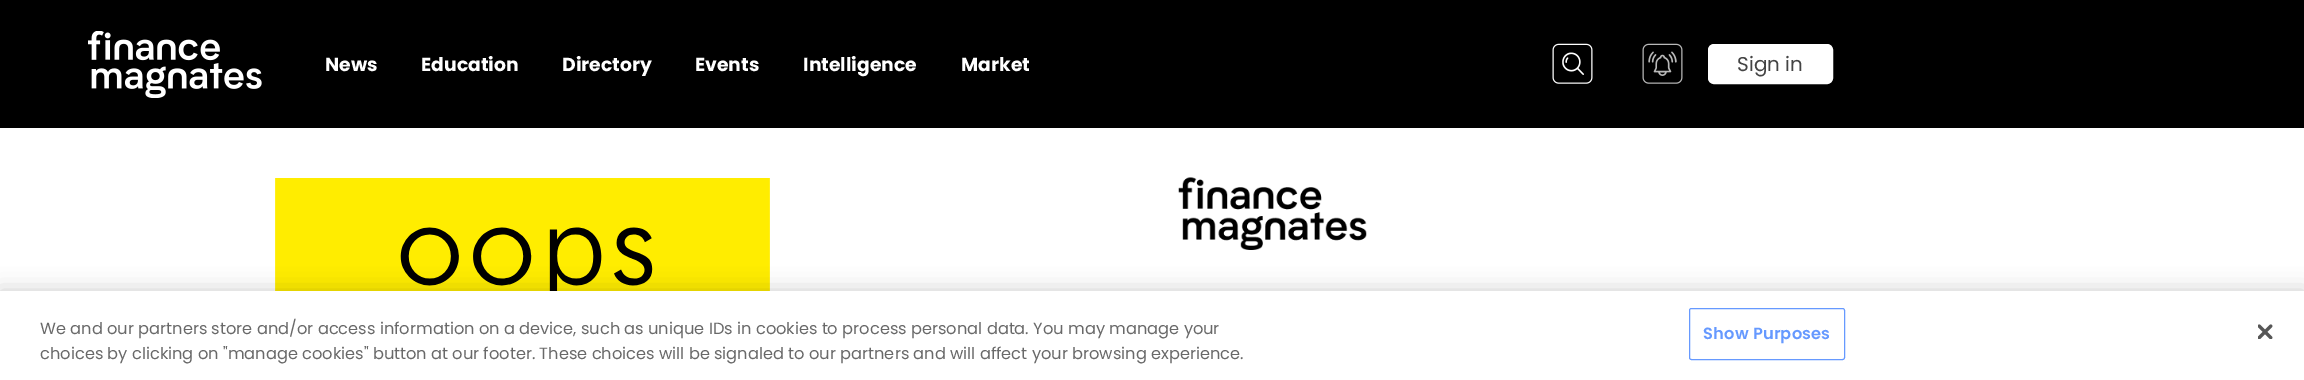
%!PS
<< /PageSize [2304 380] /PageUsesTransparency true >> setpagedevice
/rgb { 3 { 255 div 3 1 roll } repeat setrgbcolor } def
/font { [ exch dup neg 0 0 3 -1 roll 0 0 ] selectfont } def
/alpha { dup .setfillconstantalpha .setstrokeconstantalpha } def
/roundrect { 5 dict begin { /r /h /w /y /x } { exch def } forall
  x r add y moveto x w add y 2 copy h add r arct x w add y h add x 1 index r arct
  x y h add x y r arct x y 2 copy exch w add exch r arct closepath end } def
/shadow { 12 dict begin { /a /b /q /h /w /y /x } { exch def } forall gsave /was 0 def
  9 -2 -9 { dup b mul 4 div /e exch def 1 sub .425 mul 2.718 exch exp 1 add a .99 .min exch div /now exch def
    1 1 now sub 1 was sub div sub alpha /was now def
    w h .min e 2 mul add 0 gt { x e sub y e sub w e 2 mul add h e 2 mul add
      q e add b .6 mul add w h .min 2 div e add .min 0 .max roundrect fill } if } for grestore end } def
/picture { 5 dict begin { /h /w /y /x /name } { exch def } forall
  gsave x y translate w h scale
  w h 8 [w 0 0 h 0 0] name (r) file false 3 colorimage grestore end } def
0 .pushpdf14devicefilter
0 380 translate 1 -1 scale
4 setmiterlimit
255 255 255 rgb
0 0 2304 380 rectfill
0 0 0 rgb
0 0 2304 128 rectfill
(img/1.rgb) 88 31 174 67 picture
(img/2.rgb) 1552 43 41 41 picture
(img/3.rgb) 1642 43 41 41 picture
255 255 255 rgb
1709.5 45.5 122 37 4.5 roundrect gsave fill grestore
3 setlinewidth
stroke
(img/4.rgb) 275 178 495 113 picture
(img/5.rgb) 1178 177 189 73 picture
0 0 0 rgb
0 291 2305 89 0 11 0.2 shadow
255 255 255 rgb
0 291 2304 89 rectfill
102 153 255 rgb
1 setlinewidth
1689.5 308.5 155 51 2 roundrect stroke
(img/6.rgb) 2258 324 15 15 picture
/Poppins-Bold 18.75 font
255 255 255 rgb
[
  [(News) 325 71]
  [(Education) 421 71]
  [(Directory) 562 71]
  [(Events) 695 71]
  [(Intelligence) 803 71]
  [(Market) 961 71]
] { aload pop moveto show } forall
/Poppins-Regular 20 font
68 68 68 rgb
1737 71 moveto (Sign in) show
/Poppins-Regular 16.25 font
105 105 105 rgb
40 334 moveto (We and our partners store and/or access information on a device, such as unique IDs in cookies to process personal data. You may manage your) show
40 359 moveto (choices by clicking on "manage cookies" button at our footer. These choices will be signaled to our partners and will affect your browsing experience.) show
/Poppins-SemiBold 16.25 font
102 153 255 rgb
1703 339 moveto 0.2 0 (Show Purposes) ashow
.poppdf14devicefilter showpage
